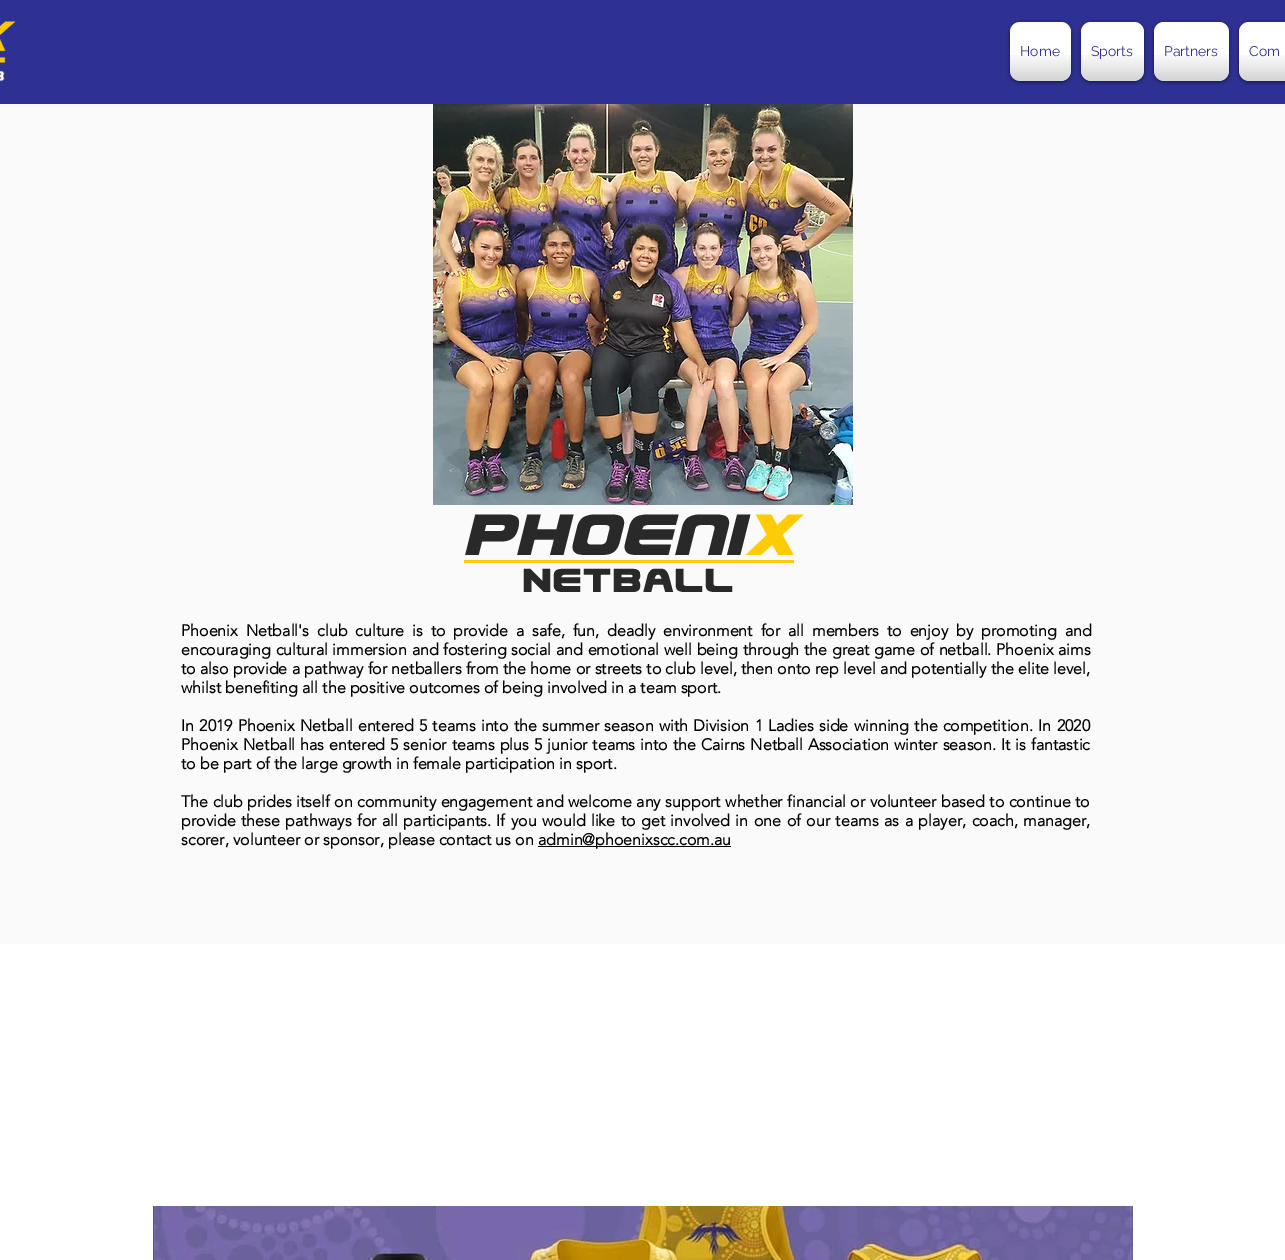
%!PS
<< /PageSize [1285 1260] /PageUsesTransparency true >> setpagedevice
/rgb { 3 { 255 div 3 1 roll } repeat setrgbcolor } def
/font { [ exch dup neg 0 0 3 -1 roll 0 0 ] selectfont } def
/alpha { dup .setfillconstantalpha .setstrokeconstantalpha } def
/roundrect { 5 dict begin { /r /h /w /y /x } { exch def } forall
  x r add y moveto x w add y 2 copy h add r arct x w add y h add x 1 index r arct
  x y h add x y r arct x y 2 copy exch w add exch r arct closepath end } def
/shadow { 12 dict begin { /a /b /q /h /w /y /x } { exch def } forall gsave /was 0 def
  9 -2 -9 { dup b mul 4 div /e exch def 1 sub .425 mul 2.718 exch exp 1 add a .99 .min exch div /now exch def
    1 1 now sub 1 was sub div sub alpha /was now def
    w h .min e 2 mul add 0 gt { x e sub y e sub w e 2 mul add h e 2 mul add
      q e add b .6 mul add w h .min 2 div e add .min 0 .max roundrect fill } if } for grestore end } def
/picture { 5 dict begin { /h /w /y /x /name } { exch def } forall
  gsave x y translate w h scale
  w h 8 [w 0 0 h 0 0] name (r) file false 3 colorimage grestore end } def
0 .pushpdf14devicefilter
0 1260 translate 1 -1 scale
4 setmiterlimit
255 255 255 rgb
0 0 1285 1260 rectfill
46 49 146 rgb
0 0 1285 104 rectfill
(img/1.rgb) 0 20 16 62 picture
0 0 0 rgb
1010 23 61 59 10 2 0.6 shadow
255 255 255 rgb
1010 22 61 59 10 roundrect fill
(img/2.rgb) 1017 22 2 1 picture
(img/3.rgb) 1010 55 61 26 picture
0 0 0 rgb
1081 23 63 59 10 2 0.6 shadow
255 255 255 rgb
1081 22 63 59 10 roundrect fill
(img/4.rgb) 1081 55 63 26 picture
0 0 0 rgb
1154 23 75 59 10 2 0.6 shadow
255 255 255 rgb
1154 22 75 59 10 roundrect fill
(img/5.rgb) 1154 55 75 26 picture
0 0 0 rgb
1239 23 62 59 10 2 0.6 shadow
255 255 255 rgb
1239 22 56 59 10 roundrect fill
(img/6.rgb) 1239 55 46 26 picture
250 250 250 rgb
0 104 1285 840 rectfill
(img/7.rgb) 433 104 420 401 picture
255 203 5 rgb
464 560 330 3 rectfill
0 0 0 rgb
538 846 193 1 rectfill
(img/8.rgb) 153 1206 980 54 picture
/Raleway-Regular 14 font
46 49 146 rgb
[
  [(Home) 1020 56]
  [(Sports) 1091 56]
  [(Partners) 1164 56]
  [(Com) 1249 56]
] { aload pop moveto show } forall
/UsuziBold-BoldItalic 70 font
41 41 41 rgb
462 555 moveto (Phoeni) show
255 203 5 rgb
744 555 moveto (x) show
/UsuziBold-Bold 40 font
41 41 41 rgb
522 592 moveto (Netball) show
/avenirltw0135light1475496-Bold 16 font
0 0 0 rgb
181 636 moveto 3.75 0 32 (Phoenix Netball's club culture is to provide a safe, fun, deadly environment for all members to enjoy by promoting and) widthshow
181 655 moveto 0.6 0 32 (encouraging cultural immersion and fostering social and emotional well being through the great game of netball. Phoenix aims) widthshow
181 674 moveto 0.1 0 32 (to also provide a pathway for netballers from the home or streets to club level, then onto rep level and potentially the elite level,) widthshow
181 693 moveto (whilst benefiting all the positive outcomes of being involved in a team sport.) show
181 731 moveto 1.1 0 32 (In 2019 Phoenix Netball entered 5 teams into the summer season with Division 1 Ladies side winning the competition. In 2020) widthshow
181 750 moveto 0.8 0 32 (Phoenix Netball has entered 5 senior teams plus 5 junior teams into the Cairns Netball Association winter season. It is fantastic) widthshow
181 769 moveto (to be part of the large growth in female participation in sport.) show
181 807 moveto 0.4 0 32 (The club prides itself on community engagement and welcome any support whether financial or volunteer based to continue to) widthshow
181 826 moveto 1.35 0 32 (provide these pathways for all participants. If you would like to get involved in one of our teams as a player, coach, manager,) widthshow
181 845 moveto (scorer, volunteer or sponsor, please contact us on) show
538 845 moveto (admin@phoenixscc.com.au) show
.poppdf14devicefilter showpage
